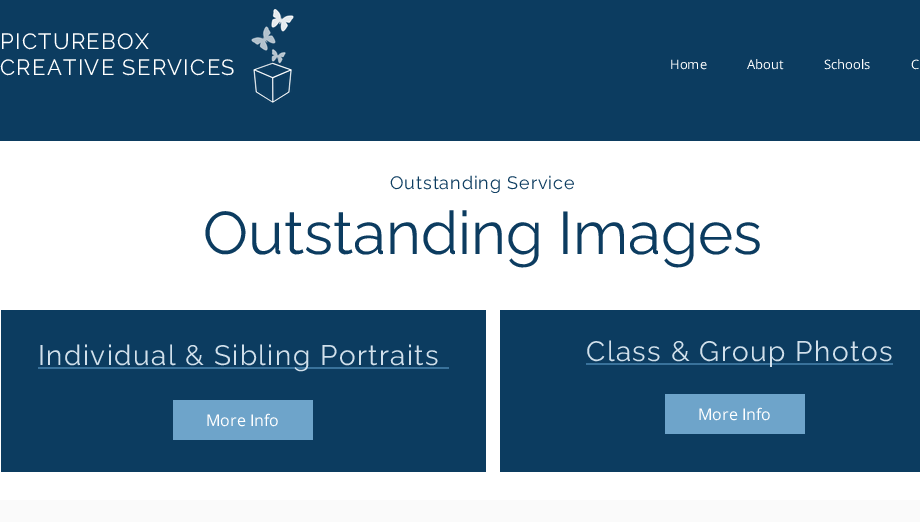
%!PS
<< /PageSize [920 522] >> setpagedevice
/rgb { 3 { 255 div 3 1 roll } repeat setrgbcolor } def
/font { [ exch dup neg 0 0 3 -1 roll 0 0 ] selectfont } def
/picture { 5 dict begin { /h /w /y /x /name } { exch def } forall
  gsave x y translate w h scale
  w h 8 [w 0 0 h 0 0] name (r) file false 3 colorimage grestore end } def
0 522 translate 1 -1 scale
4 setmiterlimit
255 255 255 rgb
0 0 920 522 rectfill
12 60 96 rgb
0 0 920 141 rectfill
(img/1.rgb) 251 9 43 94 picture
[
  [1 310 485 162 12 60 96]
  [38 367 411 2 57 114 155]
  [173 400 140 40 110 164 202]
  [500 310 420 162 12 60 96]
  [586 363 307 2 57 114 155]
  [665 394 140 40 110 164 202]
  [0 500 920 22 250 250 250]
] { aload pop rgb rectfill } forall
/Raleway-Regular 22 font
255 255 255 rgb
0 49 moveto 1.3 0 (PICTUREBOX) ashow
0 75 moveto 1.3 0 (CREATIVE SERVICES) ashow
/OpenSans-Regular 13 font
[
  [(Home) 670 69]
  [(About) 747 69]
  [(Schools) 824 69]
  [(C) 911 69]
] { aload pop moveto show } forall
/Raleway-Regular 18 font
12 60 96 rgb
390 189 moveto 0.9 0 (Outstanding Service) ashow
/Raleway-Regular 60 font
203 254 moveto (Outstanding Images) show
/Raleway-Regular 28 font
209 224 235 rgb
38 365 moveto 1.4 0 (Individual & Sibling Portraits) ashow
/OpenSans-Regular 16 font
255 255 255 rgb
206 426 moveto (More Info) show
/Raleway-Regular 28 font
209 224 235 rgb
586 361 moveto 1.4 0 (Class & Group Photos) ashow
/OpenSans-Regular 16 font
255 255 255 rgb
698 420 moveto (More Info) show
showpage
